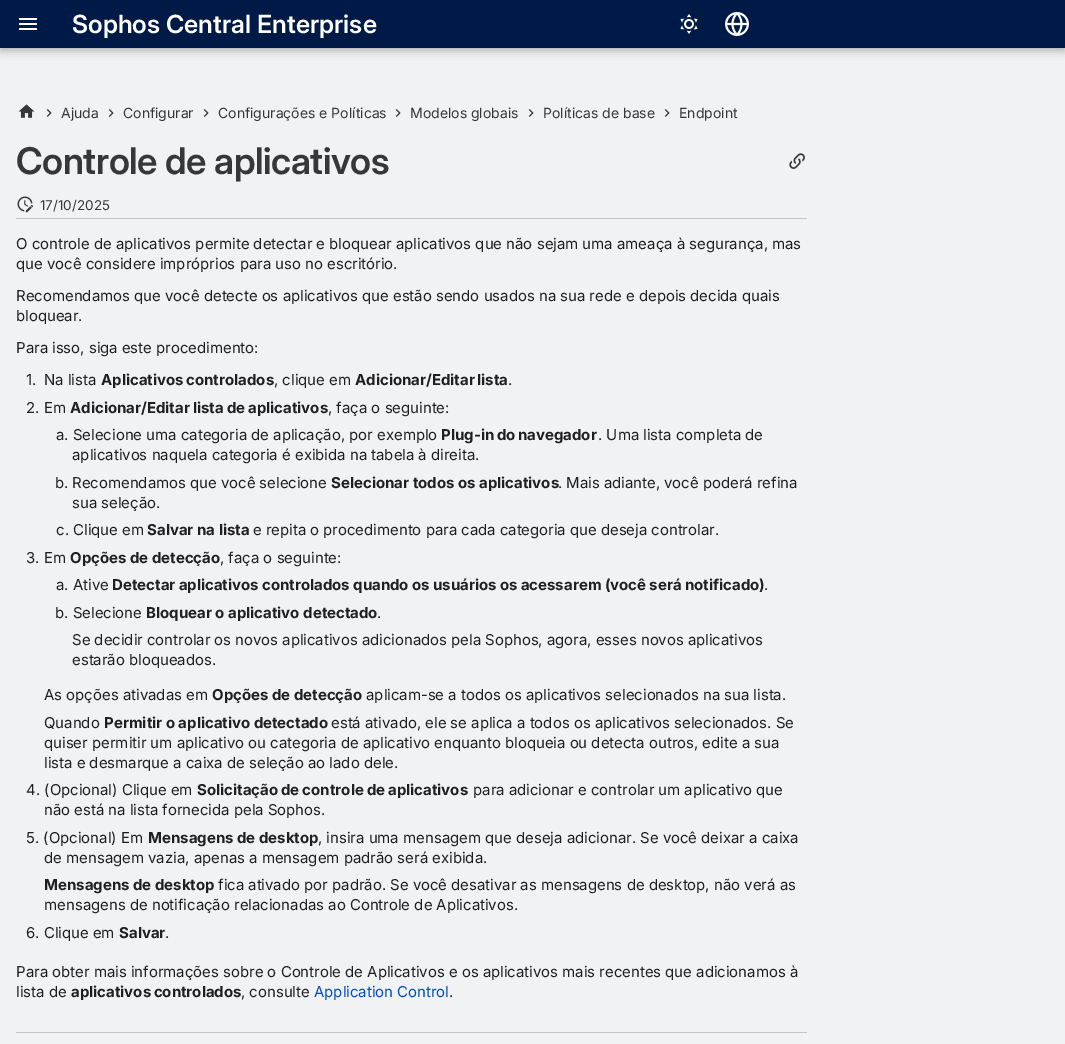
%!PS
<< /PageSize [1065 1044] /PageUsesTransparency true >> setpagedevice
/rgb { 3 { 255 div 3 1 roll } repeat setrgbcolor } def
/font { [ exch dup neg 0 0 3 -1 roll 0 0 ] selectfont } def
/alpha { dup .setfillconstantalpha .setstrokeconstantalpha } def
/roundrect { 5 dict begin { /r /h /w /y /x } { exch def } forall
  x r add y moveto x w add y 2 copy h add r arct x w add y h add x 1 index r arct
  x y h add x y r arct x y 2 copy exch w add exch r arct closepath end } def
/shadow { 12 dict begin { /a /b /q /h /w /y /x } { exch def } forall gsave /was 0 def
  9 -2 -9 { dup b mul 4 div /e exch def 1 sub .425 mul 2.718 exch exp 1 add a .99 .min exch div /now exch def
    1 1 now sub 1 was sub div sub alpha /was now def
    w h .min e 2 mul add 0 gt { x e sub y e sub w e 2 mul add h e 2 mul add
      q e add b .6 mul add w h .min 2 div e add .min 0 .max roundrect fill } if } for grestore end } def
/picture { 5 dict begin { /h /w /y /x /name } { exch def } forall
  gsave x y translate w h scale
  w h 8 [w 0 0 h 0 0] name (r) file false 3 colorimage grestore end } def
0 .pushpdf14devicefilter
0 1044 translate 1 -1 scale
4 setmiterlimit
240 242 244 rgb
0 0 1065 1044 rectfill
0 0 0 rgb
0 4 1065 48 0 4 0.2 shadow
0 0 1065 48 0 2 0.1 shadow
0 26 71 rgb
0 0 1065 48 rectfill
(img/1.rgb) 19 18 18 12 picture
(img/2.rgb) 680 14 18 20 picture
(img/3.rgb) 725 12 24 24 picture
(img/4.rgb) 18 104 17 14 picture
(img/5.rgb) 46 109 6 8 picture
(img/5.rgb) 108 109 6 8 picture
(img/5.rgb) 203 109 6 8 picture
(img/5.rgb) 395 109 6 8 picture
(img/5.rgb) 528 109 6 8 picture
(img/5.rgb) 664 109 6 8 picture
(img/6.rgb) 789 153 16 16 picture
194 197 202 rgb
16 218 791 1 rectfill
(img/7.rgb) 17 196 17 17 picture
16 1032 791 1 rectfill
/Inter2-SemiBold 25 font
255 255 255 rgb
72 33 moveto (Sophos Central Enterprise) show
/Inter-Regular 14 font
54 55 56 rgb
[
  [(Ajuda) 61 118]
  [(Configurar) 123 118]
  [(Configurações e Políticas) 218 118]
  [(Modelos globais) 410 118]
  [(Políticas de base) 543 118]
  [(Endpoint) 679 118]
] { aload pop moveto show } forall
/Inter-SemiBold 36.75 font
16 174 moveto -0.4 0 (Controle de aplicativos) ashow
/Inter-Regular 13.5 font
40 210 moveto (17/10/2025) show
/Inter2-Regular 15 font
31 31 32 rgb
[
  [(O controle de aplicativos permite detectar e bloquear aplicativos que não sejam uma ameaça à segurança, mas) 16 249]
  [(que você considere impróprios para uso no escritório.) 16 269]
  [(Recomendamos que você detecte os aplicativos que estão sendo usados na sua rede e depois decida quais) 16 301]
  [(bloquear.) 16 321]
] { aload pop moveto show } forall
16 353 moveto -0.1 0 32 (Para isso, siga este procedimento:) widthshow
26 385 moveto (1.) show
44 385 moveto (Na lista) show
/Inter-Bold 15 font
101 385 moveto -1 0 32 (Aplicativos controlados) widthshow
/Inter2-Regular 15 font
274 385 moveto (, clique em) show
/Inter-Bold 15 font
355 385 moveto -1 0 32 (Adicionar/Editar lista) widthshow
/Inter2-Regular 15 font
508 385 moveto (.) show
26 413 moveto (2. Em) show
/Inter-Bold 15 font
70 413 moveto -0.5 0 32 (Adicionar/Editar lista de aplicativos) widthshow
/Inter2-Regular 15 font
328 413 moveto (, faça o seguinte:) show
56 440 moveto (a. Selecione uma categoria de aplicação, por exemplo) show
/Inter-Bold 15 font
441 440 moveto -1 0 32 (Plug-in do navegador) widthshow
/Inter2-Regular 15 font
[
  [(. Uma lista completa de) 598 440]
  [(aplicativos naquela categoria é exibida na tabela à direita.) 72 460]
  [(b.) 55 488]
] { aload pop moveto show } forall
72 488 moveto -0.1 0 32 (Recomendamos que você selecione) widthshow
/Inter-Bold 15 font
331 488 moveto (Selecionar todos os aplicativos) show
/Inter2-Regular 15 font
558 488 moveto -0.1 0 32 (. Mais adiante, você poderá refina) widthshow
72 508 moveto (sua seleção.) show
56 535 moveto (c. Clique em) show
/Inter-Bold 15 font
147 535 moveto (Salvar na lista) show
/Inter2-Regular 15 font
253 535 moveto -0.1 0 32 (e repita o procedimento para cada categoria que deseja controlar.) widthshow
26 563 moveto (3. Em) show
/Inter-Bold 15 font
70 563 moveto (Opções de detecção) show
/Inter2-Regular 15 font
220 563 moveto (, faça o seguinte:) show
56 590 moveto (a. Ative) show
/Inter-Bold 15 font
112 590 moveto -0.25 0 32 (Detectar aplicativos controlados quando os usuários os acessarem \(você será notificado\)) widthshow
/Inter2-Regular 15 font
764 590 moveto (.) show
55 618 moveto (b. Selecione) show
/Inter-Bold 15 font
146 618 moveto (Bloquear o aplicativo detectado) show
/Inter2-Regular 15 font
377 618 moveto (.) show
72 645 moveto -0.1 0 32 (Se decidir controlar os novos aplicativos adicionados pela Sophos, agora, esses novos aplicativos) widthshow
72 665 moveto (estarão bloqueados.) show
44 700 moveto (As opções ativadas em) show
/Inter-Bold 15 font
212 700 moveto (Opções de detecção) show
/Inter2-Regular 15 font
366 700 moveto (aplicam-se a todos os aplicativos selecionados na sua lista.) show
44 728 moveto (Quando) show
/Inter-Bold 15 font
104 728 moveto (Permitir o aplicativo detectado) show
/Inter2-Regular 15 font
[
  [(está ativado, ele se aplica a todos os aplicativos selecionados. Se) 331 728]
  [(quiser permitir um aplicativo ou categoria de aplicativo enquanto bloqueia ou detecta outros, edite a sua) 44 748]
  [(lista e desmarque a caixa de seleção ao lado dele.) 44 768]
  [(4. \(Opcional\) Clique em) 26 795]
] { aload pop moveto show } forall
/Inter-Bold 15 font
197 795 moveto -0.5 0 32 (Solicitação de controle de aplicativos) widthshow
/Inter2-Regular 15 font
[
  [(para adicionar e controlar um aplicativo que) 473 795]
  [(não está na lista fornecida pela Sophos.) 44 815]
  [(5. \(Opcional\) Em) 26 843]
] { aload pop moveto show } forall
/Inter-Bold 15 font
148 843 moveto (Mensagens de desktop) show
/Inter2-Regular 15 font
318 843 moveto (, insira uma mensagem que deseja adicionar. Se você deixar a caixa) show
44 863 moveto (de mensagem vazia, apenas a mensagem padrão será exibida.) show
/Inter-Bold 15 font
44 890 moveto (Mensagens de desktop) show
/Inter2-Regular 15 font
[
  [(fica ativado por padrão. Se você desativar as mensagens de desktop, não verá as) 218 890]
  [(mensagens de notificação relacionadas ao Controle de Aplicativos.) 44 910]
  [(6. Clique em) 26 938]
] { aload pop moveto show } forall
/Inter-Bold 15 font
119 938 moveto (Salvar) show
/Inter2-Regular 15 font
[
  [(.) 165 938]
  [(Para obter mais informações sobre o Controle de Aplicativos e os aplicativos mais recentes que adicionamos à) 16 977]
  [(lista de) 16 997]
] { aload pop moveto show } forall
/Inter-Bold 15 font
71 997 moveto -1 0 32 (aplicativos controlados) widthshow
/Inter2-Regular 15 font
241 997 moveto (, consulte) show
0 79 181 rgb
314 997 moveto (Application Control) show
31 31 32 rgb
449 997 moveto (.) show
.poppdf14devicefilter showpage
